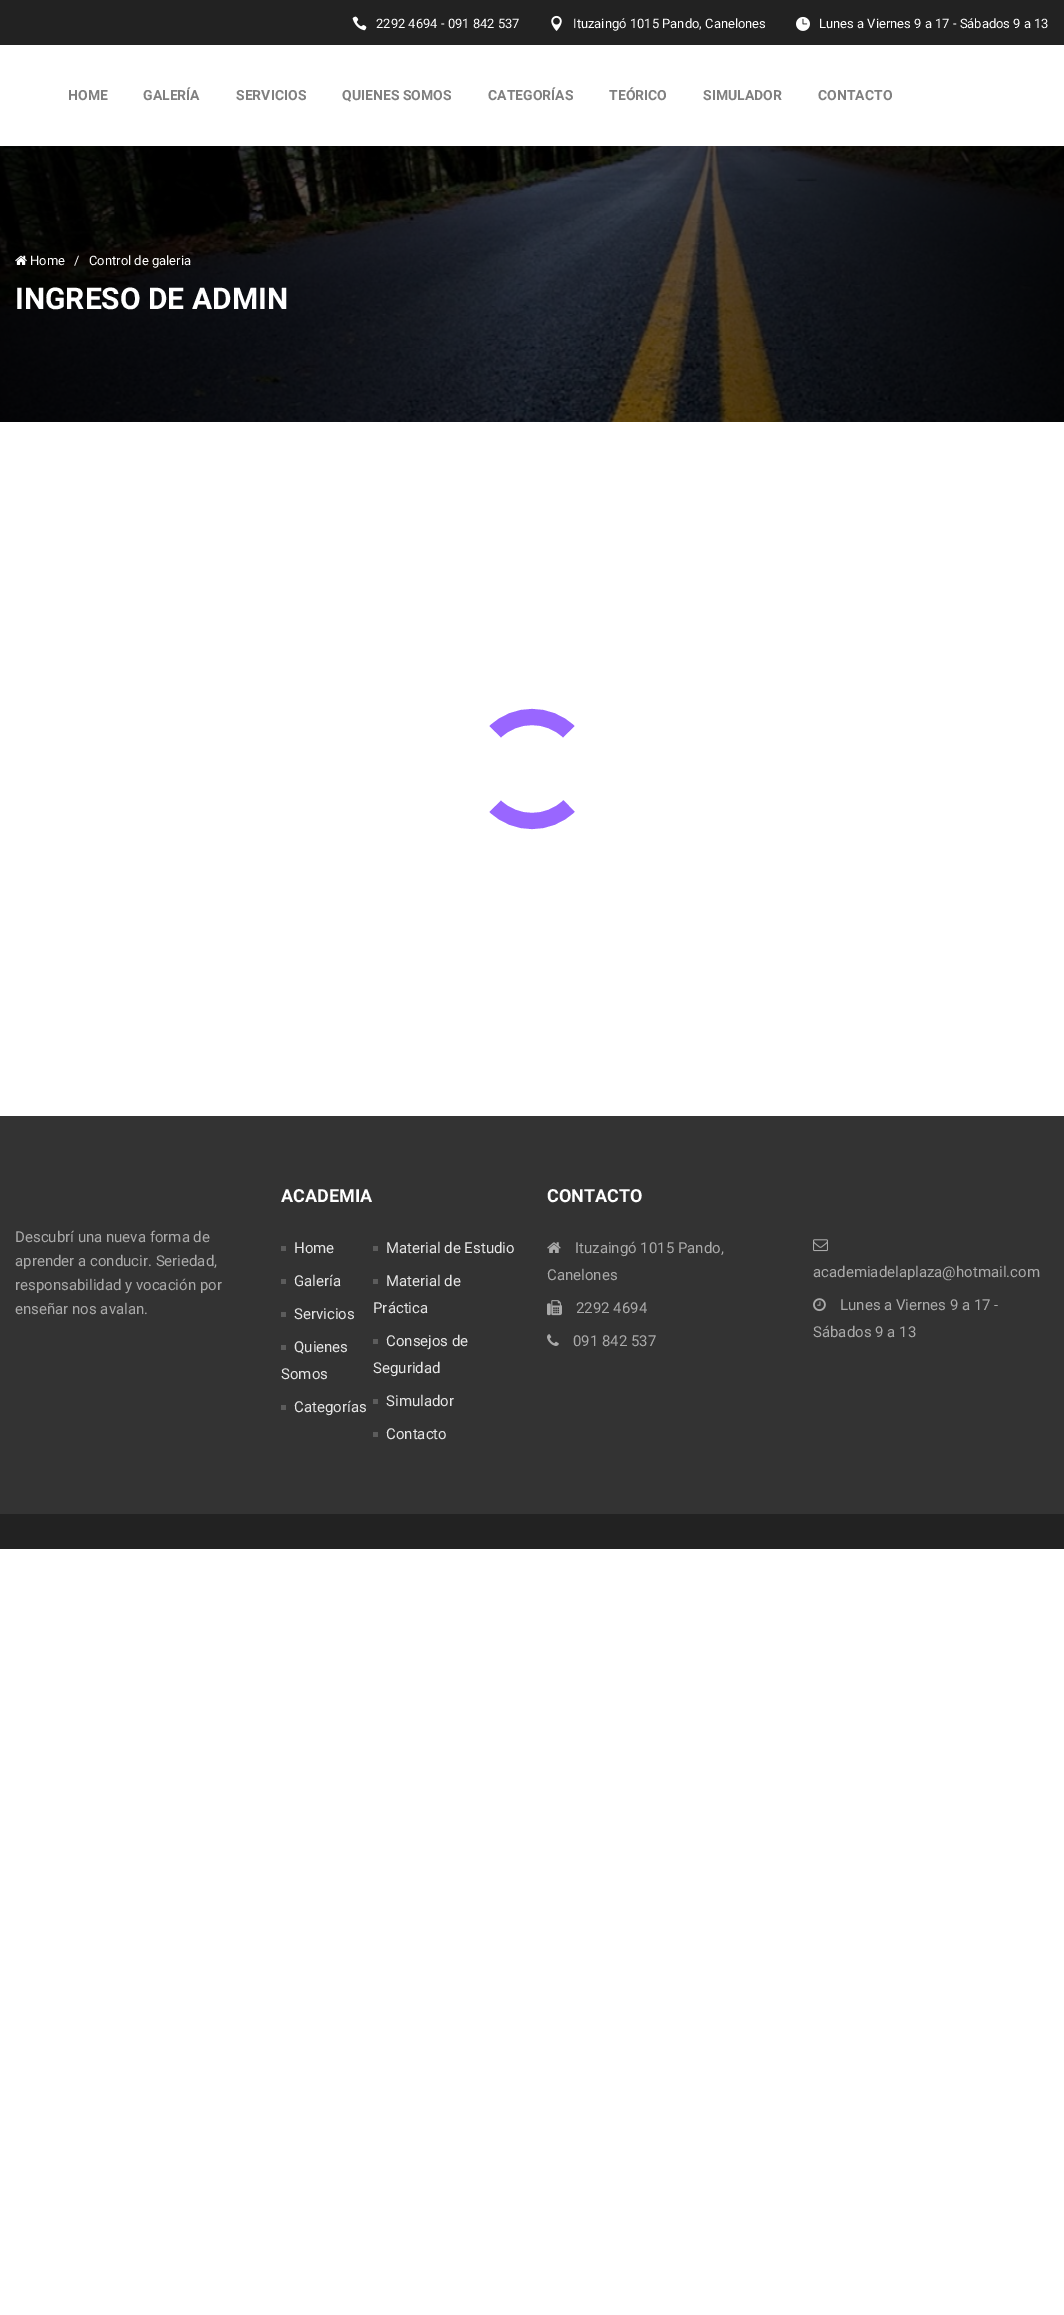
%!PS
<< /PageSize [1064 2315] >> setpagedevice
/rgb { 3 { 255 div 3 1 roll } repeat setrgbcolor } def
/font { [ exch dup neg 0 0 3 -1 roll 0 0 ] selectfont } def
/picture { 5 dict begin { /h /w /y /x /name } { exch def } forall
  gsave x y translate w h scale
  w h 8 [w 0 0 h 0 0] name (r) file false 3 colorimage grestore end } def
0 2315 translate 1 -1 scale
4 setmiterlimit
255 255 255 rgb
0 0 1064 2315 rectfill
34 34 34 rgb
0 0 1064 45 rectfill
(img/1.rgb) 352 16 15 15 picture
(img/2.rgb) 551 15 11 16 picture
(img/3.rgb) 796 16 14 15 picture
(img/4.rgb) 0 146 1064 276 picture
(img/5.rgb) 15 255 12 10 picture
153 102 255 rgb
16 setlinewidth
495 732 moveto 515.5 712 548.5 712 569 732 curveto stroke
255 255 255 rgb
569 732 moveto 589 752.5 589 785.5 569 806 curveto stroke
153 102 255 rgb
569 806 moveto 548.5 826 515.5 826 495 806 curveto stroke
255 255 255 rgb
495 806 moveto 475 785.5 475 752.5 495 732 curveto stroke
[
  [0 1116 1064 398 51 51 51]
  [281 1246 5 5 92 92 92]
  [281 1279 5 5 92 92 92]
  [281 1312 5 5 92 92 92]
  [281 1345 5 5 92 92 92]
  [281 1405 5 5 92 92 92]
  [373 1246 5 5 92 92 92]
  [373 1279 5 5 92 92 92]
  [373 1339 5 5 92 92 92]
  [373 1399 5 5 92 92 92]
  [373 1432 5 5 92 92 92]
] { aload pop rgb rectfill } forall
(img/6.rgb) 547 1242 14 11 picture
(img/7.rgb) 547 1300 15 16 picture
(img/8.rgb) 547 1334 12 12 picture
(img/9.rgb) 813 1239 15 13 picture
(img/10.rgb) 813 1298 13 14 picture
34 34 34 rgb
0 1514 1064 35 rectfill
/Roboto-Regular 13 font
255 255 255 rgb
[
  [(2292 4694 - 091 842 537) 376 28]
  [(Ituzaingó 1015 Pando, Canelones) 573 28]
  [(Lunes a Viernes 9 a 17 - Sábados 9 a 13) 819 28]
] { aload pop moveto show } forall
/Roboto-Bold 14 font
128 128 128 rgb
[
  [(HOME) 68 100]
  [(GALERÍA) 143 100]
  [(SERVICIOS) 236 100]
  [(QUIENES SOMOS) 342 100]
  [(CATEGORÍAS) 488 100]
  [(TEÓRICO) 609 100]
  [(SIMULADOR) 703 100]
  [(CONTACTO) 818 100]
] { aload pop moveto show } forall
/Roboto-Regular 13 font
255 255 255 rgb
[
  [(Home) 30 265]
  [(/) 74 265]
  [(Control de galeria) 89 265]
] { aload pop moveto show } forall
/Roboto-Bold 30 font
15 309 moveto (INGRESO DE ADMIN) show
/Roboto-Regular 15 font
170 170 170 rgb
[
  [(Descubrí una nueva forma de) 15 1242]
  [(aprender a conducir. Seriedad,) 15 1266]
  [(responsabilidad y vocación por) 15 1290]
  [(enseñar nos avalan.) 15 1314]
] { aload pop moveto show } forall
/Roboto-Bold 18 font
255 255 255 rgb
281 1202 moveto (ACADEMIA) show
/Roboto-Regular 15 font
229 229 229 rgb
[
  [(Home) 294 1253]
  [(Galería) 294 1286]
  [(Servicios) 294 1319]
  [(Quienes) 294 1352]
  [(Somos) 281 1379]
  [(Categorías) 294 1412]
  [(Material de Estudio) 386 1253]
  [(Material de) 386 1286]
  [(Práctica) 373 1313]
  [(Consejos de) 386 1346]
  [(Seguridad) 373 1373]
  [(Simulador) 386 1406]
  [(Contacto) 386 1439]
] { aload pop moveto show } forall
/Roboto-Bold 18 font
255 255 255 rgb
547 1202 moveto (CONTACTO) show
/Roboto-Regular 15 font
170 170 170 rgb
[
  [(Ituzaingó 1015 Pando,) 575 1253]
  [(Canelones) 547 1280]
  [(2292 4694) 576 1313]
  [(091 842 537) 573 1346]
  [(academiadelaplaza@hotmail.com) 813 1277]
  [(Lunes a Viernes 9 a 17 -) 840 1310]
  [(Sábados 9 a 13) 813 1337]
] { aload pop moveto show } forall
showpage
